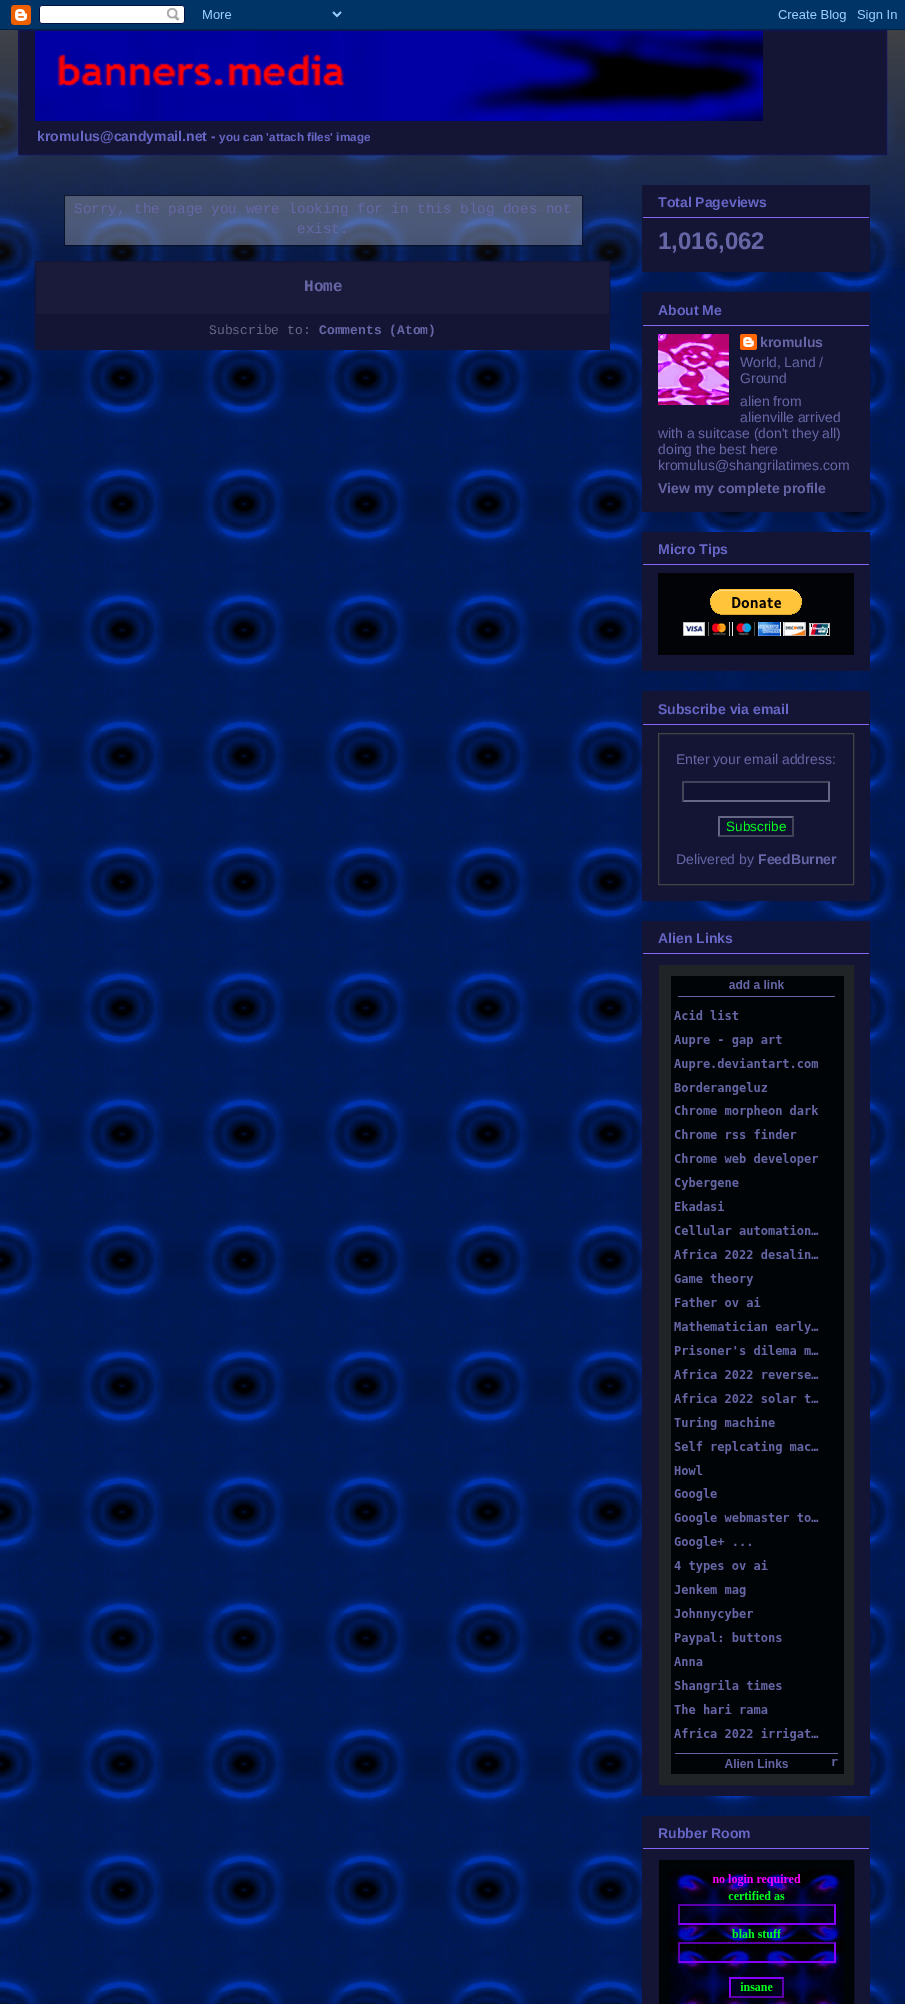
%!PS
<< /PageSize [905 2004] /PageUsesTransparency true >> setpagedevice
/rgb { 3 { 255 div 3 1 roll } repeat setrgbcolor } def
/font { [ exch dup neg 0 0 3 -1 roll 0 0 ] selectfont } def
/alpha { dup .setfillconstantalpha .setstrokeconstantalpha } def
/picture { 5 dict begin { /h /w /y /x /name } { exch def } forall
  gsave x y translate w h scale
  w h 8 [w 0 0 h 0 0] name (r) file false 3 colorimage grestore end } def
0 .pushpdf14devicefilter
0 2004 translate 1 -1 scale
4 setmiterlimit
255 255 255 rgb
0 0 905 2004 rectfill
(img/1.rgb) 0 0 905 30 picture
(img/2.rgb) 0 30 905 1974 picture
(img/3.rgb) 0 30 905 238 picture
20 20 52 rgb
18.5 30.5 moveto 886.5 30.5 lineto 886.5 154.5 lineto 18.5 154.5 lineto closepath gsave fill grestore
20 20 84 rgb
stroke
(img/4.rgb) 35 31 728 90 picture
0.4 alpha
0 0 0 rgb
64.5 195.5 518 50 rectstroke
0.32 alpha
204 204 204 rgb
65 196 517 49 rectfill
1 alpha
26 26 58 rgb
35.5 261.5 moveto 609.5 261.5 lineto 609.5 314.5 lineto 35.5 314.5 lineto closepath gsave fill grestore
20 20 52 rgb
stroke
[
  [35 315 575 35 20 20 52]
  [642 185 228 87 20 20 52]
  [643 217 226 1 134 102 246]
  [642 292 228 220 20 20 52]
  [643 325 226 1 134 102 246]
] { aload pop rgb rectfill } forall
(img/5.rgb) 658 334 71 71 picture
(img/6.rgb) 740 334 17 16 picture
[
  [642 532 228 139 20 20 52]
  [643 564 226 1 134 102 246]
  [658 573 196 82 1 3 7]
] { aload pop rgb rectfill } forall
(img/7.rgb) 683 589 147 47 picture
20 20 52 rgb
642 691 228 210 rectfill
134 102 246 rgb
643 724 226 1 rectfill
68 68 68 rgb
658.5 733.5 195 151 rectstroke
17 17 49 rgb
682 781 148 21 rectfill
68 68 89 rgb
682 781 moveto 830 781 lineto 828 783 lineto 684 783 lineto closepath fill
102 102 134 rgb
830 781 moveto 830 802 lineto 828 800 lineto 828 783 lineto closepath fill
830 802 moveto 682 802 lineto 684 800 lineto 828 800 lineto closepath fill
68 68 89 rgb
682 802 moveto 682 781 lineto 684 783 lineto 684 800 lineto closepath fill
17 17 49 rgb
718 816 76 21 rectfill
102 102 134 rgb
718 816 moveto 794 816 lineto 792 818 lineto 720 818 lineto closepath fill
68 68 89 rgb
794 816 moveto 794 837 lineto 792 835 lineto 792 818 lineto closepath fill
794 837 moveto 718 837 lineto 720 835 lineto 792 835 lineto closepath fill
102 102 134 rgb
718 837 moveto 718 816 lineto 720 818 lineto 720 835 lineto closepath fill
20 20 52 rgb
642 921 228 875 rectfill
134 102 246 rgb
643 953 226 1 rectfill
33 36 39 rgb
10 setlinewidth
664 970 185 810 rectstroke
[
  [669 975 175 1 33 36 39]
  [669 1774 175 1 33 36 39]
  [669 975 2 800 33 36 39]
] { aload pop rgb rectfill } forall
(img/8.rgb) 671 976 173 798 picture
20 20 52 rgb
642 1816 228 188 rectfill
134 102 246 rgb
643 1848 226 1 rectfill
1 4 7 rgb
664 1865 185 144 rectstroke
(img/9.rgb) 669 1870 175 134 picture
/LiberationSans-Bold 14 font
102 102 198 rgb
37 141 moveto (kromulus@candymail.net -) show
/LiberationSans-Bold 11.7 font
219 141 moveto (you can 'attach files' image) show
/LiberationMono-Regular 14.3 font
102 102 166 rgb
74 213 moveto (Sorry, the page you were looking for in this blog does not) show
297 233 moveto (exist.) show
/LiberationMono-Bold 16 font
304 291 moveto (Home) show
/LiberationMono-Regular 13 font
102 102 134 rgb
209 334 moveto (Subscribe to:) show
/LiberationMono-Bold 13 font
102 102 166 rgb
319 334 moveto (Comments \(Atom\)) show
/LiberationSans-Bold 14 font
102 102 198 rgb
658 207 moveto (Total Pageviews) show
/LiberationSans-Bold 24 font
102 102 166 rgb
658 249 moveto (1,016,062) show
/LiberationSans-Bold 14 font
102 102 198 rgb
658 315 moveto (About Me) show
102 102 166 rgb
760 347 moveto (kromulus) show
/LiberationSans-Regular 14 font
[
  [(World, Land /) 740 367]
  [(Ground) 740 383]
  [(alien from) 740 406]
  [(alienville arrived) 740 422]
  [(with a suitcase \(don't they all\)) 658 438]
  [(doing the best here) 658 454]
  [(kromulus@shangrilatimes.com) 658 470]
] { aload pop moveto show } forall
/LiberationSans-Bold 14 font
658 493 moveto (View my complete profile) show
102 102 198 rgb
658 554 moveto (Micro Tips) show
658 714 moveto (Subscribe via email) show
/LiberationSans-Regular 14 font
102 102 166 rgb
676 764 moveto (Enter your email address:) show
/LiberationSans-Regular 13.5 font
1 255 32 rgb
726 831 moveto (Subscribe) show
/LiberationSans-Regular 14 font
102 102 166 rgb
676 864 moveto (Delivered by) show
/LiberationSans-Bold 14 font
758 864 moveto (FeedBurner) show
102 102 198 rgb
658 943 moveto (Alien Links) show
658 1838 moveto (Rubber Room) show
.poppdf14devicefilter showpage
